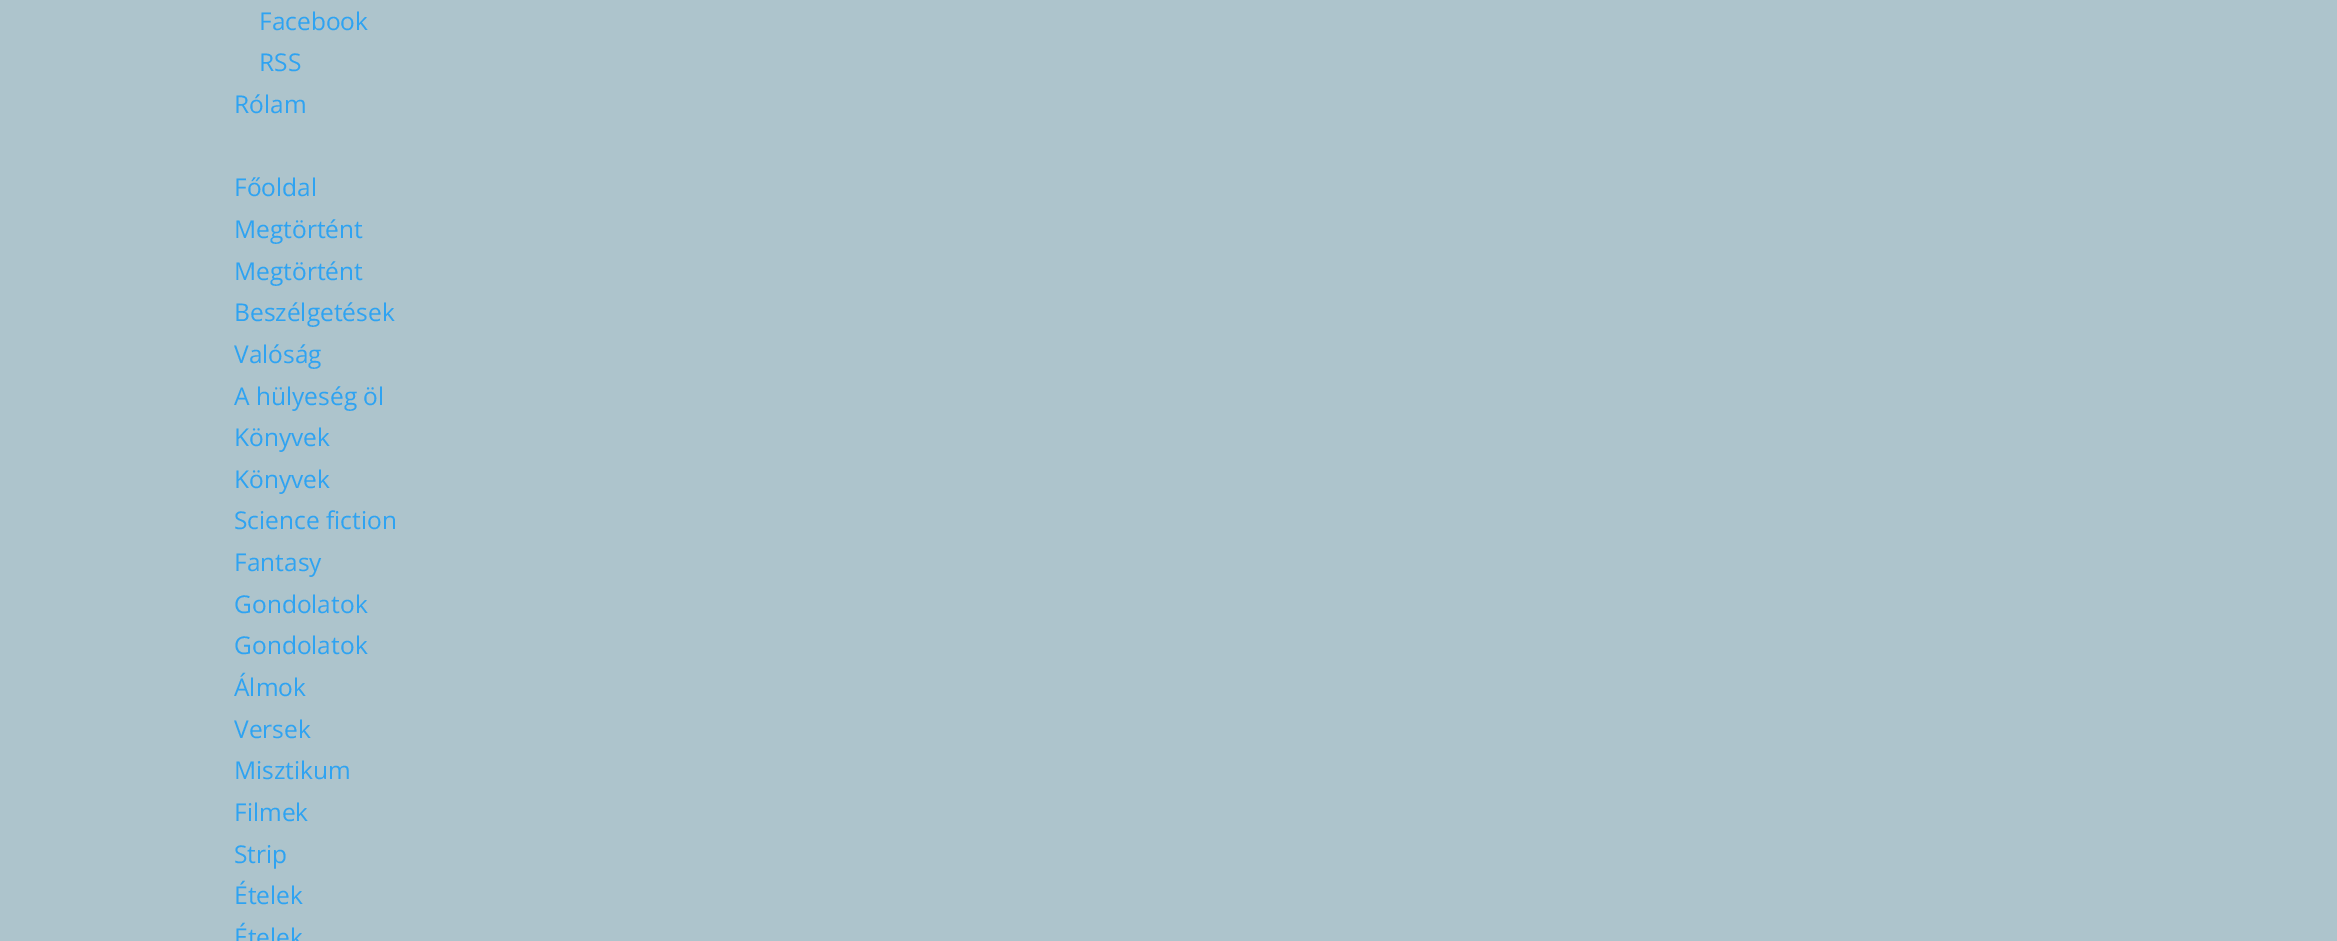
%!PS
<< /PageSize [2337 941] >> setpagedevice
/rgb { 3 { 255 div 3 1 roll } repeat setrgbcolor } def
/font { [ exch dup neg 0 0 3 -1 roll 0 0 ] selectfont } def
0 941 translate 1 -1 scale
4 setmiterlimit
173 196 204 rgb
0 0 2337 941 rectfill
/OpenSans-Regular 24.5 font
46 163 242 rgb
[
  [(Facebook) 259 30]
  [(RSS) 259 71]
  [(Rólam) 234 113]
  [(Főoldal) 234 196]
  [(Megtörtént) 234 238]
  [(Megtörtént) 234 280]
  [(Beszélgetések) 234 321]
  [(Valóság) 234 363]
  [(A hülyeség öl) 234 405]
  [(Könyvek) 234 446]
  [(Könyvek) 234 488]
  [(Science fiction) 234 529]
  [(Fantasy) 234 571]
  [(Gondolatok) 234 613]
  [(Gondolatok) 234 654]
  [(Álmok) 234 696]
  [(Versek) 234 738]
  [(Misztikum) 234 779]
  [(Filmek) 234 821]
  [(Strip) 234 863]
  [(Ételek) 234 904]
  [(Ételek) 234 946]
] { aload pop moveto show } forall
showpage
